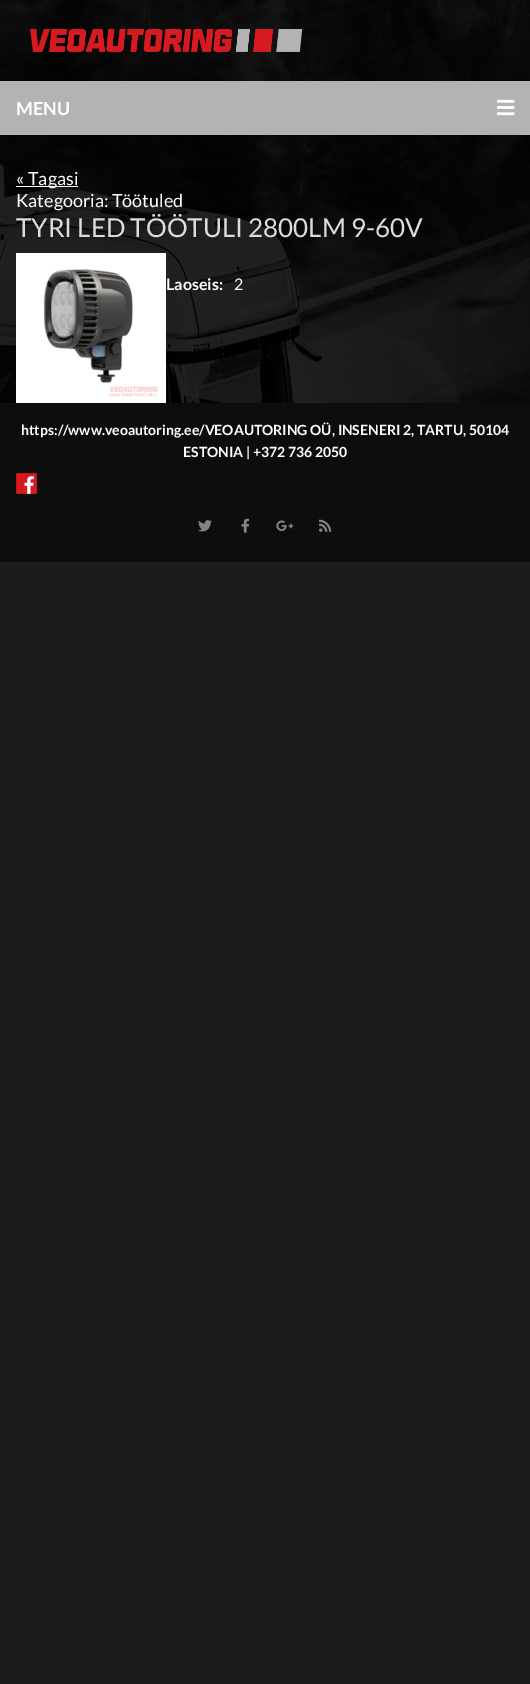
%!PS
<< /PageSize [530 1684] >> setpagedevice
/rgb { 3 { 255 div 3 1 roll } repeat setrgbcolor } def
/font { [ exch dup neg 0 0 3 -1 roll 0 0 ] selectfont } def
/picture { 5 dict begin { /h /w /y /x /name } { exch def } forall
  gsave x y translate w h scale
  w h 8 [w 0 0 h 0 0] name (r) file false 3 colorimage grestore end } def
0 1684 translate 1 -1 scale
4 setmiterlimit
28 28 28 rgb
0 0 530 1684 rectfill
(img/1.rgb) 0 0 530 403 picture
(img/2.rgb) 30 29 273 23 picture
179 179 179 rgb
0 81 530 54 rectfill
(img/3.rgb) 497 99 18 17 picture
255 255 255 rgb
16 186 62 1 rectfill
(img/4.rgb) 16 253 150 150 picture
13 13 13 rgb
0 403 530 159 rectfill
(img/5.rgb) 16 473 21 21 picture
(img/6.rgb) 198 520 14 12 picture
(img/7.rgb) 241 518 9 15 picture
(img/8.rgb) 276 520 18 11 picture
(img/9.rgb) 319 519 13 13 picture
/Lato-Bold 18 font
255 255 255 rgb
16 115 moveto (MENU) show
/Lato-Regular 18 font
16 185 moveto (« Tagasi) show
16 207 moveto (Kategooria: Töötuled) show
/Lato-Regular 26 font
221 221 221 rgb
16 237 moveto (TYRI LED TÖÖTULI 2800LM 9-60V) show
/Lato-Bold 16 font
255 255 255 rgb
166 290 moveto (Laoseis:) show
/Lato-Regular 16 font
234 290 moveto (2) show
/Lato-Bold 14 font
21 435 moveto (https://www.veoautoring.ee/VEOAUTORING OÜ, INSENERI 2, TARTU, 50104) show
183 457 moveto (ESTONIA | +372 736 2050) show
showpage
